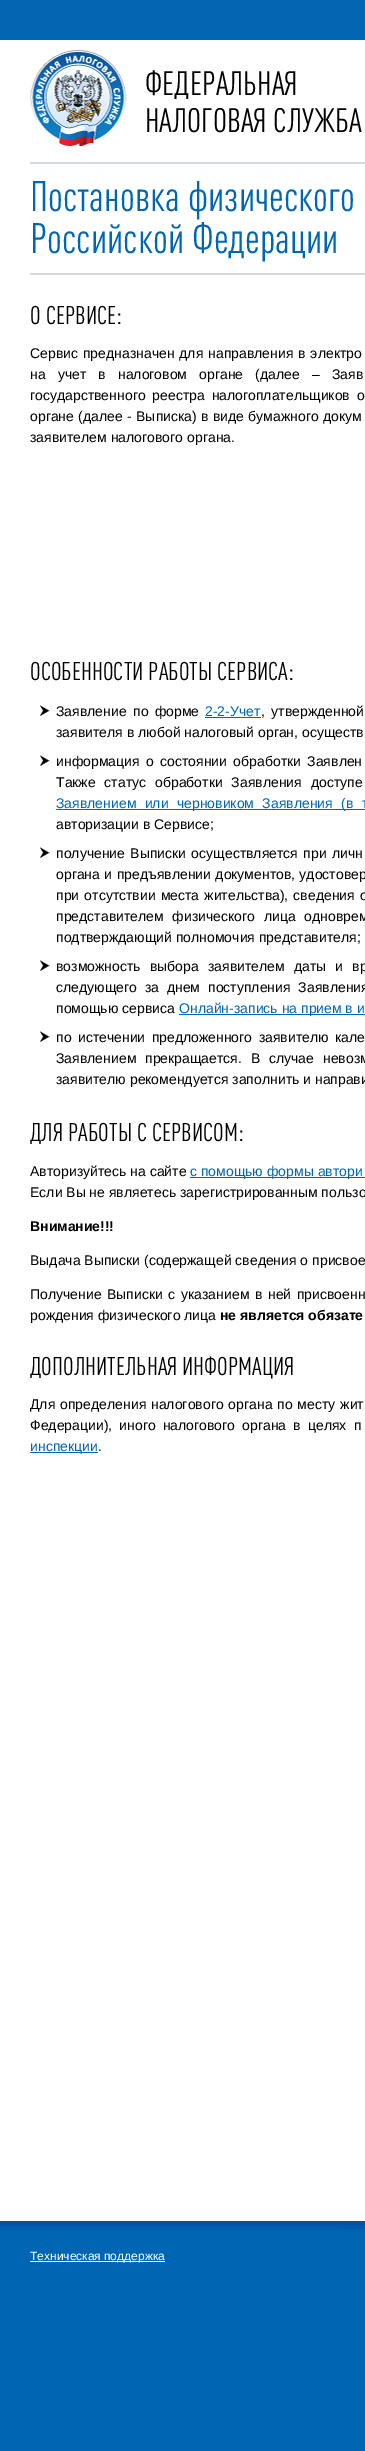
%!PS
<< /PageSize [365 2451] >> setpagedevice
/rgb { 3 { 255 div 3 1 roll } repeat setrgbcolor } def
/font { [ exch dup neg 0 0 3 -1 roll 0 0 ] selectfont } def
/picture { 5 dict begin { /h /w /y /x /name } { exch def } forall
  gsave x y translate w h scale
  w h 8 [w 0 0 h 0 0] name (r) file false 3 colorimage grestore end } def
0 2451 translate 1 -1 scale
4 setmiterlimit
255 255 255 rgb
0 0 365 2451 rectfill
4 102 179 rgb
0 0 365 40 rectfill
(img/1.rgb) 30 50 97 96 picture
210 218 224 rgb
30 162 335 2 rectfill
30 273 335 2 rectfill
(img/2.rgb) 40 705 10 11 picture
0 102 179 rgb
205 717 56 1 rectfill
(img/2.rgb) 40 755 10 11 picture
56 809 309 1 rectfill
(img/2.rgb) 40 847 10 11 picture
(img/2.rgb) 40 960 10 11 picture
179 1014 186 1 rectfill
(img/2.rgb) 40 1031 10 11 picture
[
  [190 1177 175 1 0 102 179]
  [30 1452 68 1 0 102 179]
  [0 2231 365 220 0 102 179]
] { aload pop rgb rectfill } forall
(img/3.rgb) 0 2221 365 10 picture
255 255 255 rgb
30 2261 135 1 rectfill
/DIN-Regular 33.5 font
0 0 0 rgb
145 95 moveto (ФЕДЕРАЛЬНАЯ) show
145 132 moveto (НАЛОГОВАЯ СЛУЖБА) show
/DIN-Regular 42 font
0 102 179 rgb
30 211 moveto (Постановка физического) show
30 253 moveto (Российской Федерации) show
/DIN-Regular 25.25 font
0 0 0 rgb
30 324 moveto (О СЕРВИСЕ:) show
/LiberationSans-Regular 14 font
30 358 moveto 1 0 32 (Сервис предназначен для направления в электро) widthshow
30 379 moveto 8.25 0 32 (на учет в налоговом органе \(далее – Заяв) widthshow
30 400 moveto 3 0 32 (государственного реестра налогоплательщиков о) widthshow
30 421 moveto 0.5 0 32 (органе \(далее - Выписка\) в виде бумажного докум) widthshow
30 442 moveto (заявителем налогового органа.) show
/DIN-Regular 25.25 font
30 680 moveto (ОСОБЕННОСТИ РАБОТЫ СЕРВИСА:) show
/LiberationSans-Regular 14 font
56 716 moveto 2.5 0 32 (Заявление по форме) widthshow
0 102 179 rgb
205 716 moveto (2-2-Учет) show
0 0 0 rgb
261 716 moveto 2.5 0 32 (, утвержденной) widthshow
56 737 moveto (заявителя в любой налоговый орган, осуществ) show
56 766 moveto 2.5 0 32 (информация о состоянии обработки Заявлен) widthshow
56 787 moveto 5 0 32 (Также статус обработки Заявления доступе) widthshow
0 102 179 rgb
56 808 moveto 4.5 0 32 (Заявлением или черновиком Заявления \(в т) widthshow
0 0 0 rgb
56 829 moveto (авторизации в Сервисе;) show
56 858 moveto 1.5 0 32 (получение Выписки осуществляется при личн) widthshow
56 879 moveto 0.5 0 32 (органа и предъявлении документов, удостовер) widthshow
56 900 moveto 1.25 0 32 (при отсутствии места жительства\), сведения о) widthshow
56 921 moveto 5 0 32 (представителем физического лица одноврем) widthshow
56 942 moveto (подтверждающий полномочия представителя;) show
56 971 moveto 5.25 0 32 (возможность выбора заявителем даты и вр) widthshow
56 992 moveto 4 0 32 (следующего за днем поступления Заявления) widthshow
56 1013 moveto (помощью сервиса) show
0 102 179 rgb
179 1013 moveto (Онлайн-запись на прием в и) show
0 0 0 rgb
56 1042 moveto 2.5 0 32 (по истечении предложенного заявителю кале) widthshow
56 1063 moveto 5 0 32 (Заявлением прекращается. В случае невозм) widthshow
56 1084 moveto (заявителю рекомендуется заполнить и направи) show
/DIN-Regular 25.25 font
30 1141 moveto (ДЛЯ РАБОТЫ С СЕРВИСОМ:) show
/LiberationSans-Regular 14 font
30 1176 moveto (Авторизуйтесь на сайте) show
0 102 179 rgb
190 1176 moveto (с помощью формы автори) show
0 0 0 rgb
30 1197 moveto (Если Вы не являетесь зарегистрированным пользо) show
/LiberationSans-Bold 14 font
30 1231 moveto (Внимание!!!) show
/LiberationSans-Regular 14 font
30 1265 moveto (Выдача Выписки \(содержащей сведения о присвое) show
30 1299 moveto 1.75 0 32 (Получение Выписки с указанием в ней присвоенн) widthshow
30 1320 moveto (рождения физического лица) show
/LiberationSans-Bold 14 font
220 1320 moveto (не является обязате) show
/DIN-Regular 25.25 font
30 1375 moveto (ДОПОЛНИТЕЛЬНАЯ ИНФОРМАЦИЯ) show
/LiberationSans-Regular 14 font
30 1409 moveto 1 0 32 (Для определения налогового органа по месту жит) widthshow
30 1430 moveto 3.25 0 32 (Федерации\), иного налогового органа в целях п) widthshow
0 102 179 rgb
30 1451 moveto (инспекции) show
0 0 0 rgb
98 1451 moveto (.) show
/LiberationSans-Regular 12 font
255 255 255 rgb
30 2260 moveto (Техническая поддержка) show
showpage
